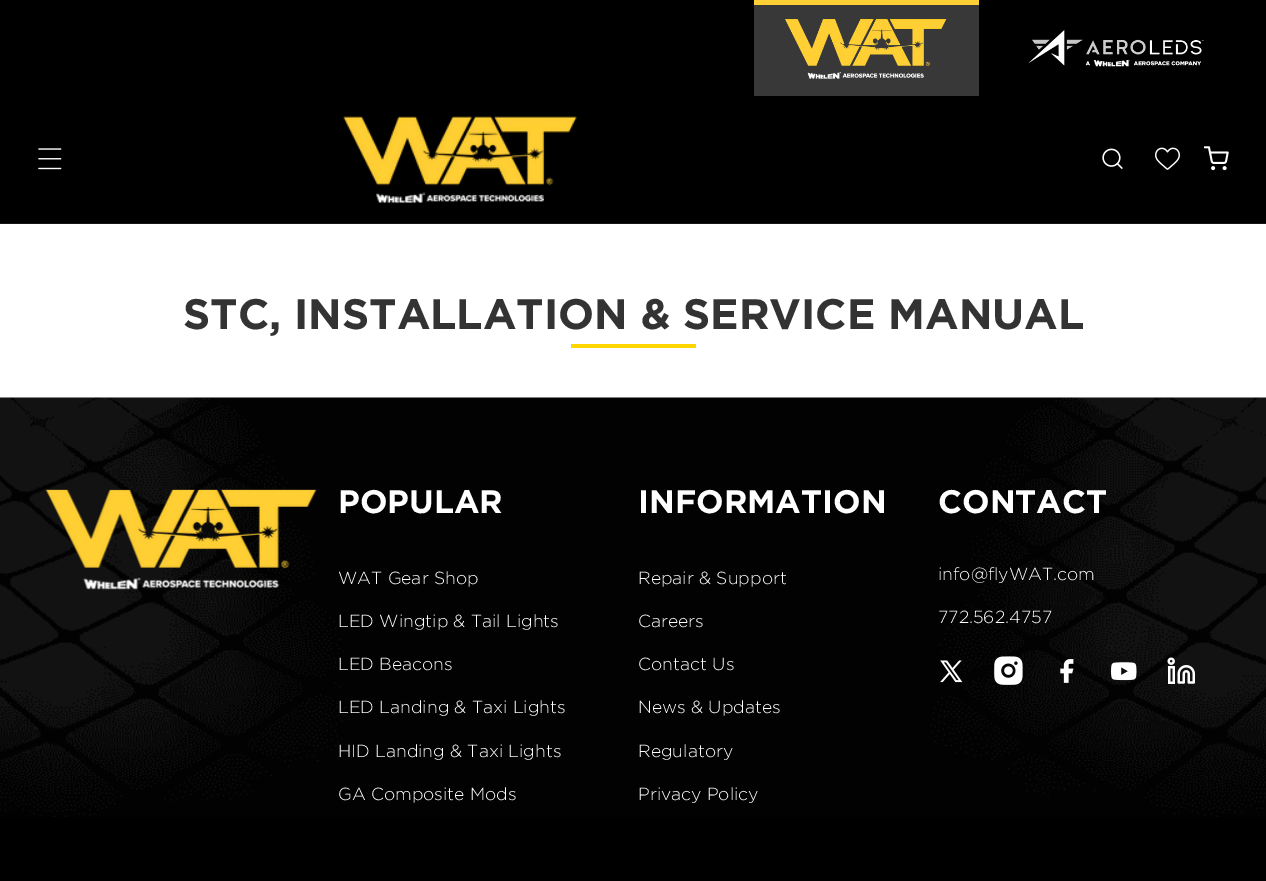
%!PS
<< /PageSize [1266 881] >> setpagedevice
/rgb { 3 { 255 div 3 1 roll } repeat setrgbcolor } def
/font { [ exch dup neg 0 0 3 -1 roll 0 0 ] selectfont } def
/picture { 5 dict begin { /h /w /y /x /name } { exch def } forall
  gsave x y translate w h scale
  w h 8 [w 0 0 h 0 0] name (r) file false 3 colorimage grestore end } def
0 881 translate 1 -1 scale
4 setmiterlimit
255 255 255 rgb
0 0 1266 881 rectfill
[
  [0 0 1266 223 0 0 0]
  [754 5 225 91 56 56 56]
  [754 0 225 5 255 207 54]
] { aload pop rgb rectfill } forall
(img/1.rgb) 785 19 162 60 picture
(img/2.rgb) 1028 30 176 37 picture
20 20 20 rgb
0 223 1266 1 rectfill
(img/3.rgb) 38 148 24 22 picture
(img/4.rgb) 343 116 234 88 picture
(img/5.rgb) 1102 148 21 21 picture
(img/6.rgb) 1155 147 25 23 picture
(img/7.rgb) 1204 146 25 25 picture
255 213 0 rgb
571 344 125 4 rectfill
0 0 0 rgb
0 817 1266 64 rectfill
(img/8.rgb) 0 397 1266 420 picture
(img/9.rgb) 45 489 272 101 picture
(img/10.rgb) 940 660 23 23 picture
(img/11.rgb) 994 656 29 29 picture
(img/12.rgb) 1060 659 14 24 picture
(img/13.rgb) 1111 662 26 19 picture
(img/14.rgb) 1167 657 28 27 picture
/Gotham-Bold 42.5 font
51 51 51 rgb
183 329 moveto (STC, INSTALLATION & SERVICE MANUAL) show
/Gotham-Bold 32.5 font
255 255 255 rgb
338 513 moveto (POPULAR) show
/Gotham-Light 17.5 font
[
  [(WAT Gear Shop) 338 584]
  [(LED Wingtip & Tail Lights) 338 627]
  [(LED Beacons) 338 670]
  [(LED Landing & Taxi Lights) 338 713]
  [(HID Landing & Taxi Lights) 338 757]
  [(GA Composite Mods) 338 800]
] { aload pop moveto show } forall
/Gotham-Bold 32.5 font
638 513 moveto (INFORMATION) show
/Gotham-Light 17.5 font
[
  [(Repair & Support) 638 584]
  [(Careers) 638 627]
  [(Contact Us) 638 670]
  [(News & Updates) 638 713]
  [(Regulatory) 638 757]
  [(Privacy Policy) 638 800]
] { aload pop moveto show } forall
/Gotham-Bold 32.5 font
938 513 moveto (CONTACT) show
/Gotham-Light 17.5 font
938 580 moveto (info@flyWAT.com) show
938 623 moveto (772.562.4757) show
showpage
